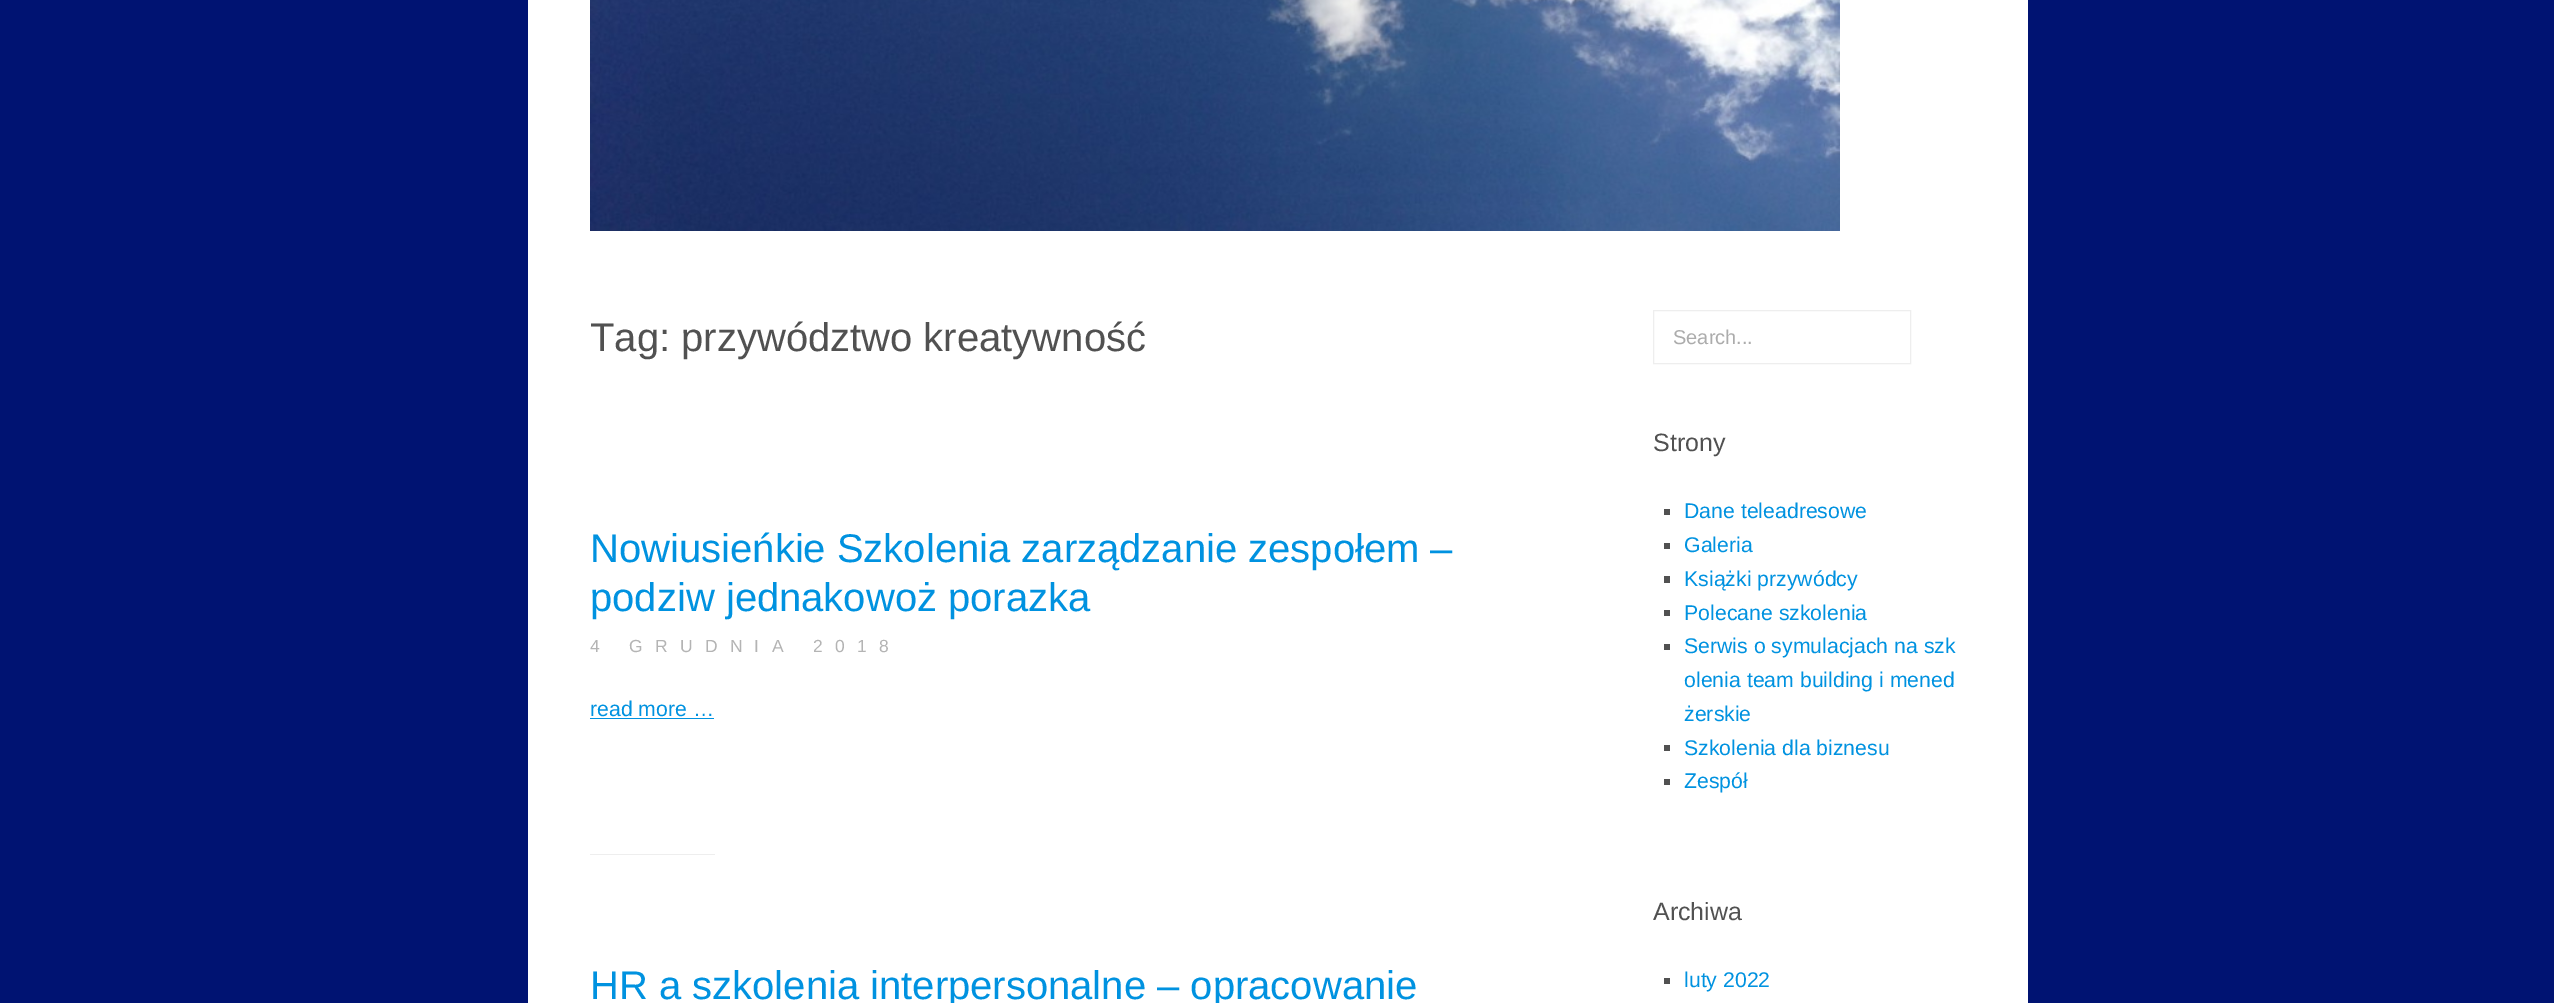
%!PS
<< /PageSize [2554 1003] >> setpagedevice
/rgb { 3 { 255 div 3 1 roll } repeat setrgbcolor } def
/font { [ exch dup neg 0 0 3 -1 roll 0 0 ] selectfont } def
/picture { 5 dict begin { /h /w /y /x /name } { exch def } forall
  gsave x y translate w h scale
  w h 8 [w 0 0 h 0 0] name (r) file false 3 colorimage grestore end } def
0 1003 translate 1 -1 scale
4 setmiterlimit
0 19 114 rgb
0 0 2554 1003 rectfill
255 255 255 rgb
528 0 1500 1003 rectfill
(img/1.rgb) 590 0 1250 231 picture
0 146 224 rgb
590 718 124 1 rectfill
238 238 238 rgb
590 854 125 1 rectfill
1653.5 310.5 257 53 rectstroke
[
  [1664 509 6 6 81 81 81]
  [1664 543 6 6 81 81 81]
  [1664 576 6 7 81 81 81]
  [1664 610 6 6 81 81 81]
  [1664 644 6 6 81 81 81]
  [1664 745 6 6 81 81 81]
  [1664 779 6 6 81 81 81]
  [1664 978 6 6 81 81 81]
] { aload pop rgb rectfill } forall
/LiberationSans-Regular 40 font
590 351 moveto (Tag: przywództwo kreatywność) show
0 146 224 rgb
590 562 moveto (Nowiusieńkie Szkolenia zarządzanie zespołem –) show
590 611 moveto (podziw jednakowoż porazka) show
/LiberationSans-Regular 17.5 font
180 180 180 rgb
590 652 moveto 12.25 0 (4 GRUDNIA 2018) ashow
/LiberationSans-Regular 21.25 font
0 146 224 rgb
590 716 moveto (read more …) show
/LiberationSans-Regular 40 font
590 999 moveto (HR a szkolenia interpersonalne – opracowanie) show
/LiberationSans-Regular 20 font
172 172 172 rgb
1673 344 moveto (Search...) show
/LiberationSans-Regular 25 font
81 81 81 rgb
1653 451 moveto (Strony) show
/LiberationSans-Regular 21.25 font
0 146 224 rgb
[
  [(Dane teleadresowe) 1684 518]
  [(Galeria) 1684 552]
  [(Książki przywódcy) 1684 586]
  [(Polecane szkolenia) 1684 620]
  [(Serwis o symulacjach na szk) 1684 653]
  [(olenia team building i mened) 1684 687]
  [(żerskie) 1684 721]
  [(Szkolenia dla biznesu) 1684 755]
  [(Zespół) 1684 788]
] { aload pop moveto show } forall
/LiberationSans-Regular 25 font
81 81 81 rgb
1653 920 moveto (Archiwa) show
/LiberationSans-Regular 21.25 font
0 146 224 rgb
1684 987 moveto (luty 2022) show
showpage
